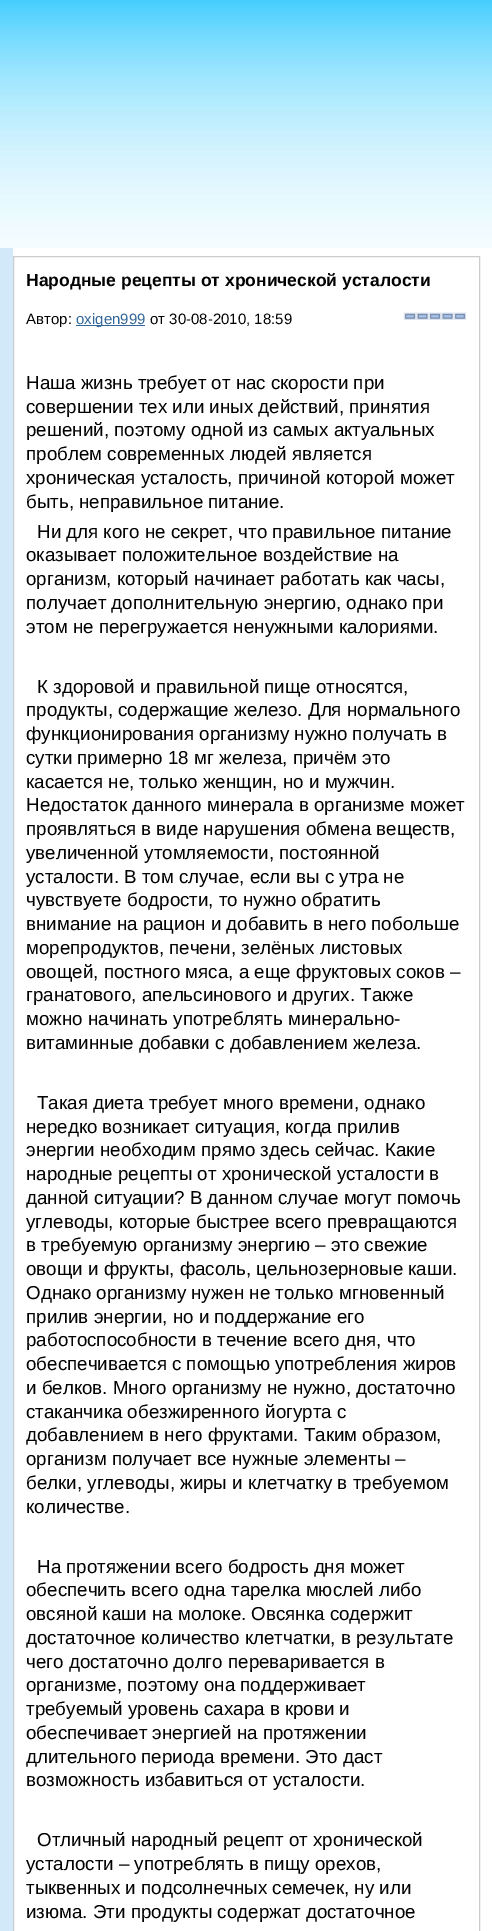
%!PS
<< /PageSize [492 1931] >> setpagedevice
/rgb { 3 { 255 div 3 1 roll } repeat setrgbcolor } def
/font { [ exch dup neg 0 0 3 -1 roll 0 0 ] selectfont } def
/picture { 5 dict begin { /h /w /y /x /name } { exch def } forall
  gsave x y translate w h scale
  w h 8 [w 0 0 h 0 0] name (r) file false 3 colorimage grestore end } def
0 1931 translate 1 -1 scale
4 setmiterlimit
255 255 255 rgb
0 0 492 1931 rectfill
(img/1.rgb) 0 0 492 248 picture
210 233 250 rgb
0 248 13 1683 rectfill
204 204 204 rgb
13.5 256.5 466 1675 rectstroke
51 102 153 rgb
76 325 69 1 rectfill
(img/2.rgb) 403 312 64 8 picture
/LiberationSans-Bold 17.5 font
0 0 0 rgb
26 286 moveto (Народные рецепты от хронической усталости) show
/LiberationSans-Regular 15 font
26 324 moveto (Автор:) show
51 102 153 rgb
76 324 moveto (oxigen999) show
0 0 0 rgb
150 324 moveto (от 30-08-2010, 18:59) show
/LiberationSans-Regular 18.75 font
[
  [(Наша жизнь требует от нас скорости при) 26 389]
  [(совершении тех или иных действий, принятия) 26 413]
  [(решений, поэтому одной из самых актуальных) 26 436]
  [(проблем современных людей является) 26 460]
  [(хроническая усталость, причиной которой может) 26 484]
  [(быть, неправильное питание.) 26 508]
  [(Ни для кого не секрет, что правильное питание) 37 538]
  [(оказывает положительное воздействие на) 26 561]
  [(организм, который начинает работать как часы,) 26 585]
  [(получает дополнительную энергию, однако при) 26 609]
  [(этом не перегружается ненужными калориями.) 26 633]
  [(К здоровой и правильной пище относятся,) 37 693]
  [(продукты, содержащие железо. Для нормального) 26 716]
  [(функционирования организму нужно получать в) 26 740]
  [(сутки примерно 18 мг железа, причём это) 26 764]
  [(касается не, только женщин, но и мужчин.) 26 788]
  [(Недостаток данного минерала в организме может) 26 811]
  [(проявляться в виде нарушения обмена веществ,) 26 835]
  [(увеличенной утомляемости, постоянной) 26 859]
  [(усталости. В том случае, если вы с утра не) 26 883]
  [(чувствуете бодрости, то нужно обратить) 26 906]
  [(внимание на рацион и добавить в него побольше) 26 930]
  [(морепродуктов, печени, зелёных листовых) 26 954]
  [(овощей, постного мяса, а еще фруктовых соков –) 26 978]
  [(гранатового, апельсинового и других. Также) 26 1001]
  [(можно начинать употреблять минерально-) 26 1025]
  [(витаминные добавки с добавлением железа.) 26 1049]
  [(Такая диета требует много времени, однако) 37 1109]
  [(нередко возникает ситуация, когда прилив) 26 1133]
  [(энергии необходим прямо здесь сейчас. Какие) 26 1156]
  [(народные рецепты от хронической усталости в) 26 1180]
  [(данной ситуации? В данном случае могут помочь) 26 1204]
  [(углеводы, которые быстрее всего превращаются) 26 1228]
  [(в требуемую организму энергию – это свежие) 26 1251]
  [(овощи и фрукты, фасоль, цельнозерновые каши.) 26 1275]
  [(Однако организму нужен не только мгновенный) 26 1299]
  [(прилив энергии, но и поддержание его) 26 1323]
  [(работоспособности в течение всего дня, что) 26 1346]
  [(обеспечивается с помощью употребления жиров) 26 1370]
  [(и белков. Много организму не нужно, достаточно) 26 1394]
  [(стаканчика обезжиренного йогурта с) 26 1418]
  [(добавлением в него фруктами. Таким образом,) 26 1441]
  [(организм получает все нужные элементы –) 26 1465]
  [(белки, углеводы, жиры и клетчатку в требуемом) 26 1489]
  [(количестве.) 26 1513]
  [(На протяжении всего бодрость дня может) 37 1573]
  [(обеспечить всего одна тарелка мюслей либо) 26 1596]
  [(овсяной каши на молоке. Овсянка содержит) 26 1620]
  [(достаточное количество клетчатки, в результате) 26 1644]
  [(чего достаточно долго переваривается в) 26 1668]
  [(организме, поэтому она поддерживает) 26 1691]
  [(требуемый уровень сахара в крови и) 26 1715]
  [(обеспечивает энергией на протяжении) 26 1739]
  [(длительного периода времени. Это даст) 26 1763]
  [(возможность избавиться от усталости.) 26 1786]
  [(Отличный народный рецепт от хронической) 37 1846]
  [(усталости – употреблять в пищу орехов,) 26 1870]
  [(тыквенных и подсолнечных семечек, ну или) 26 1894]
  [(изюма. Эти продукты содержат достаточное) 26 1918]
] { aload pop moveto show } forall
showpage
